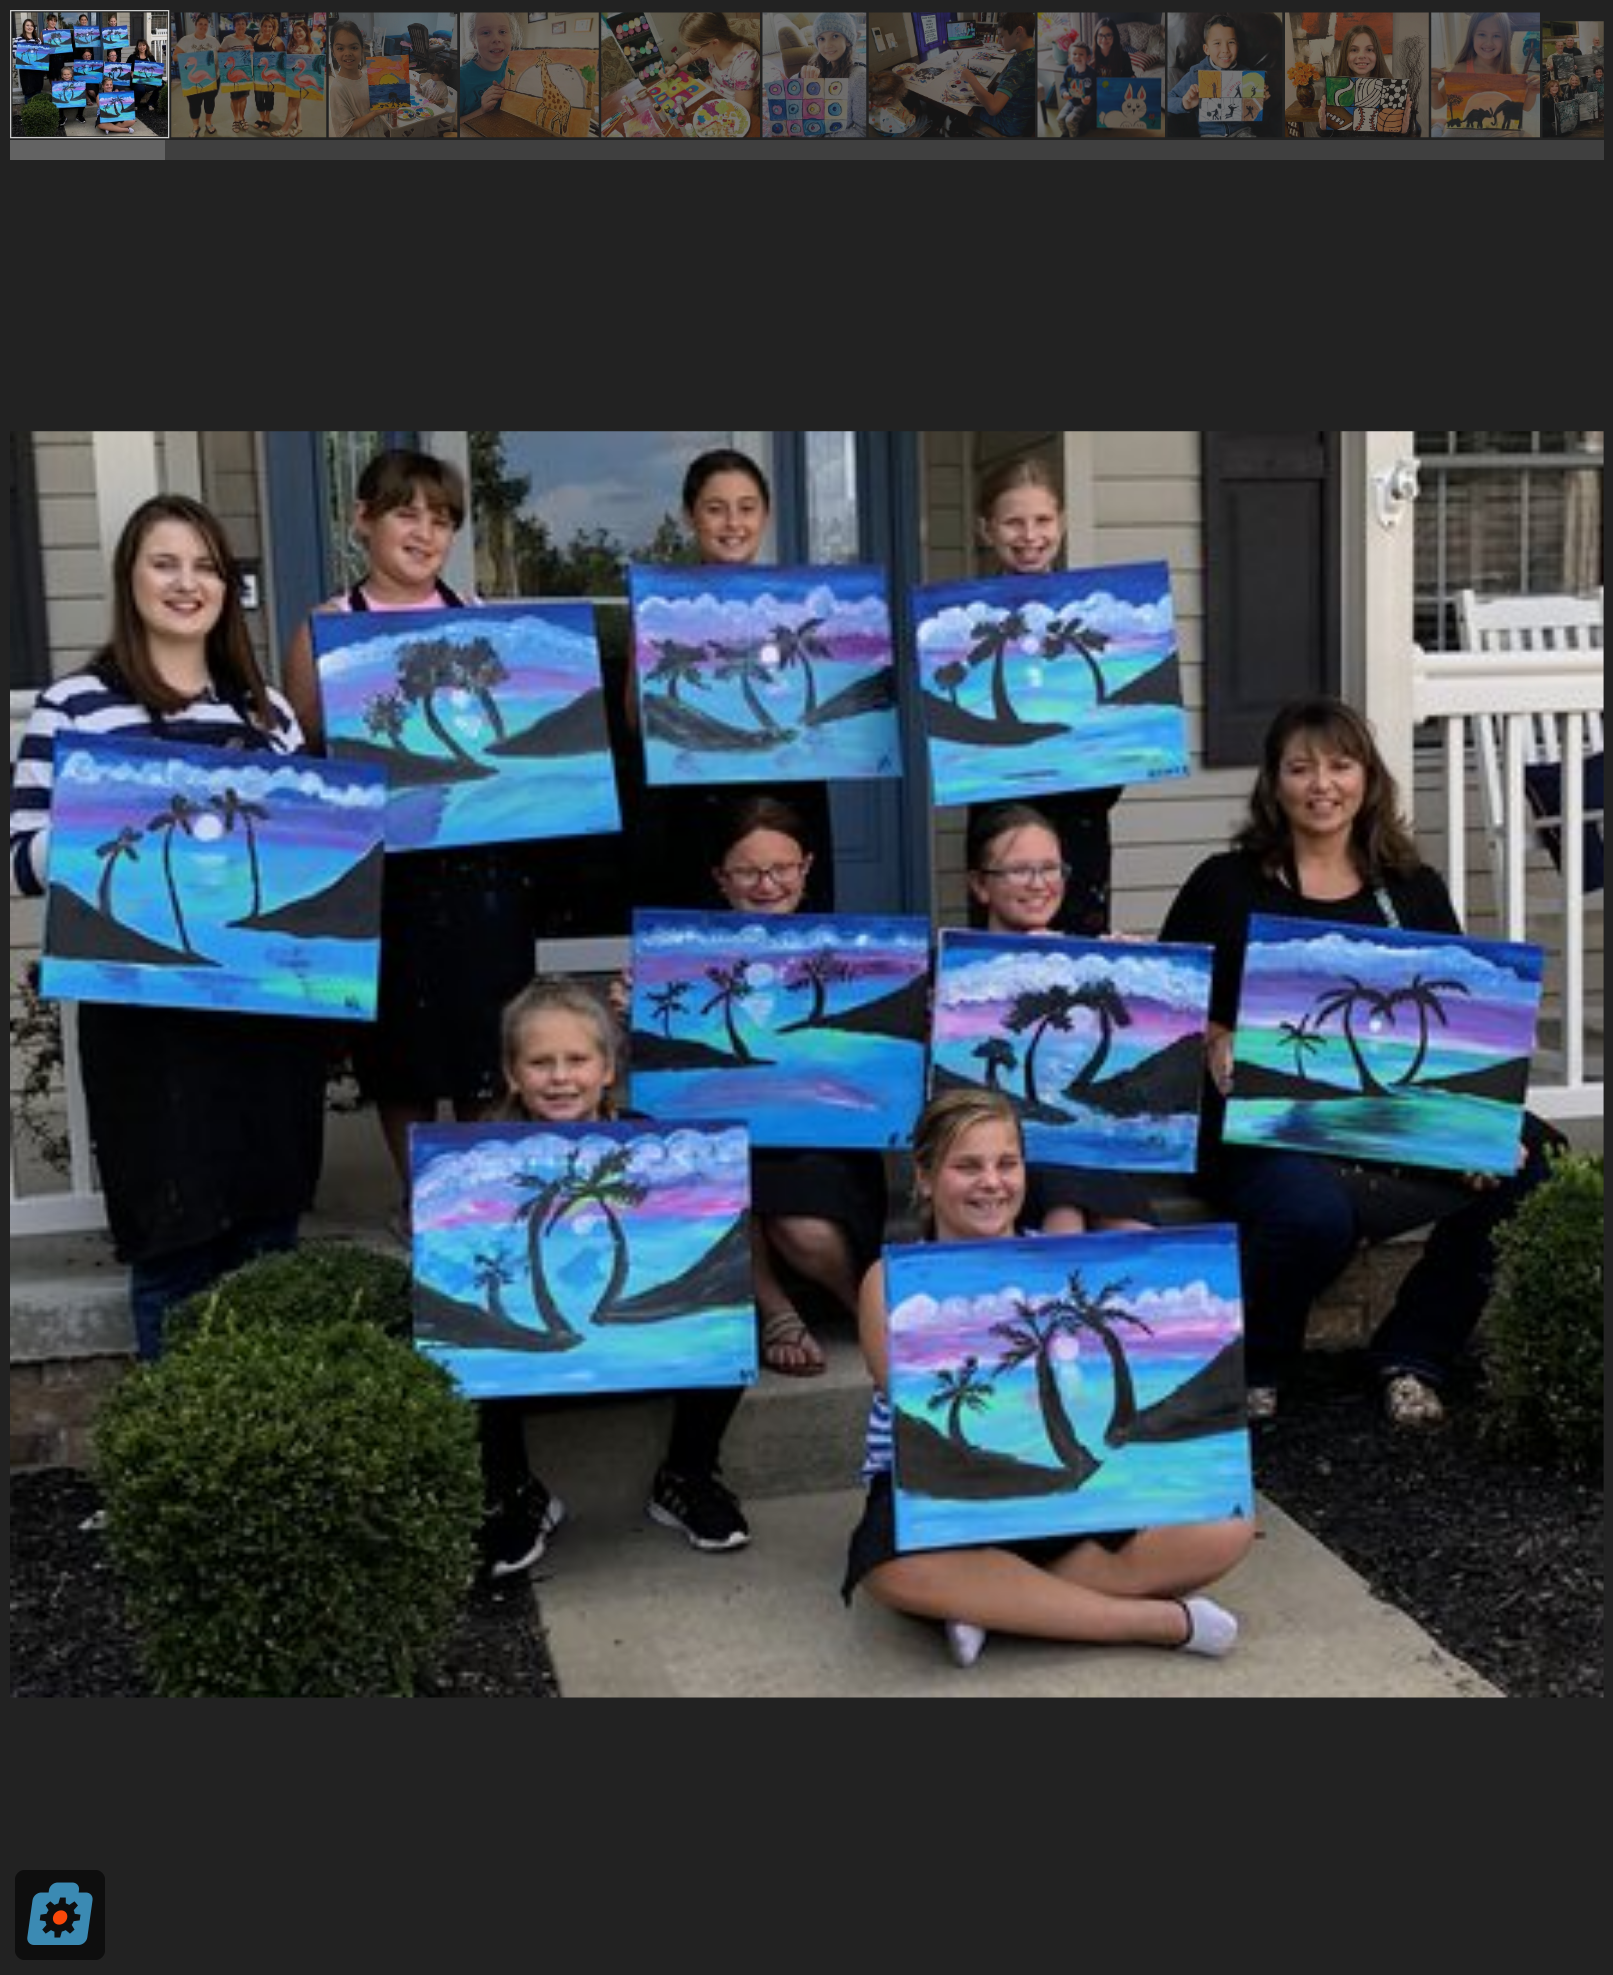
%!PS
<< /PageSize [1613 1975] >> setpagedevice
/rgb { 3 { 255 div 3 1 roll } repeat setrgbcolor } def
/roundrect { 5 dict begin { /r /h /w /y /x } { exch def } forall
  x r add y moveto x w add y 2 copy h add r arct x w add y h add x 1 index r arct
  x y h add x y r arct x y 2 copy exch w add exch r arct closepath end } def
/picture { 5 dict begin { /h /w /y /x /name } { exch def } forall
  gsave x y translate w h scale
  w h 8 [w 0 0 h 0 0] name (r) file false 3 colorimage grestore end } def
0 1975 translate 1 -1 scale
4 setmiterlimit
34 34 34 rgb
0 0 1613 1975 rectfill
204 204 204 rgb
10.5 10.5 158 127 rectstroke
(img/1.rgb) 12 12 156 125 picture
(img/2.rgb) 171 12 156 126 picture
(img/3.rgb) 328 12 130 126 picture
(img/4.rgb) 460 12 139 126 picture
(img/5.rgb) 601 12 159 126 picture
(img/6.rgb) 762 12 105 126 picture
(img/7.rgb) 868 12 167 126 picture
(img/8.rgb) 1037 12 128 126 picture
(img/9.rgb) 1167 12 116 126 picture
(img/10.rgb) 1285 12 144 126 picture
(img/11.rgb) 1431 12 109 126 picture
(img/12.rgb) 1542 21 62 117 picture
63 63 63 rgb
165 140 1439 20 rectfill
99 99 99 rgb
10 140 155 20 rectfill
(img/13.rgb) 10 431 1594 1267 picture
14 14 14 rgb
15 1870 90 90 10 roundrect fill
(img/14.rgb) 27 1882 66 63 picture
showpage
